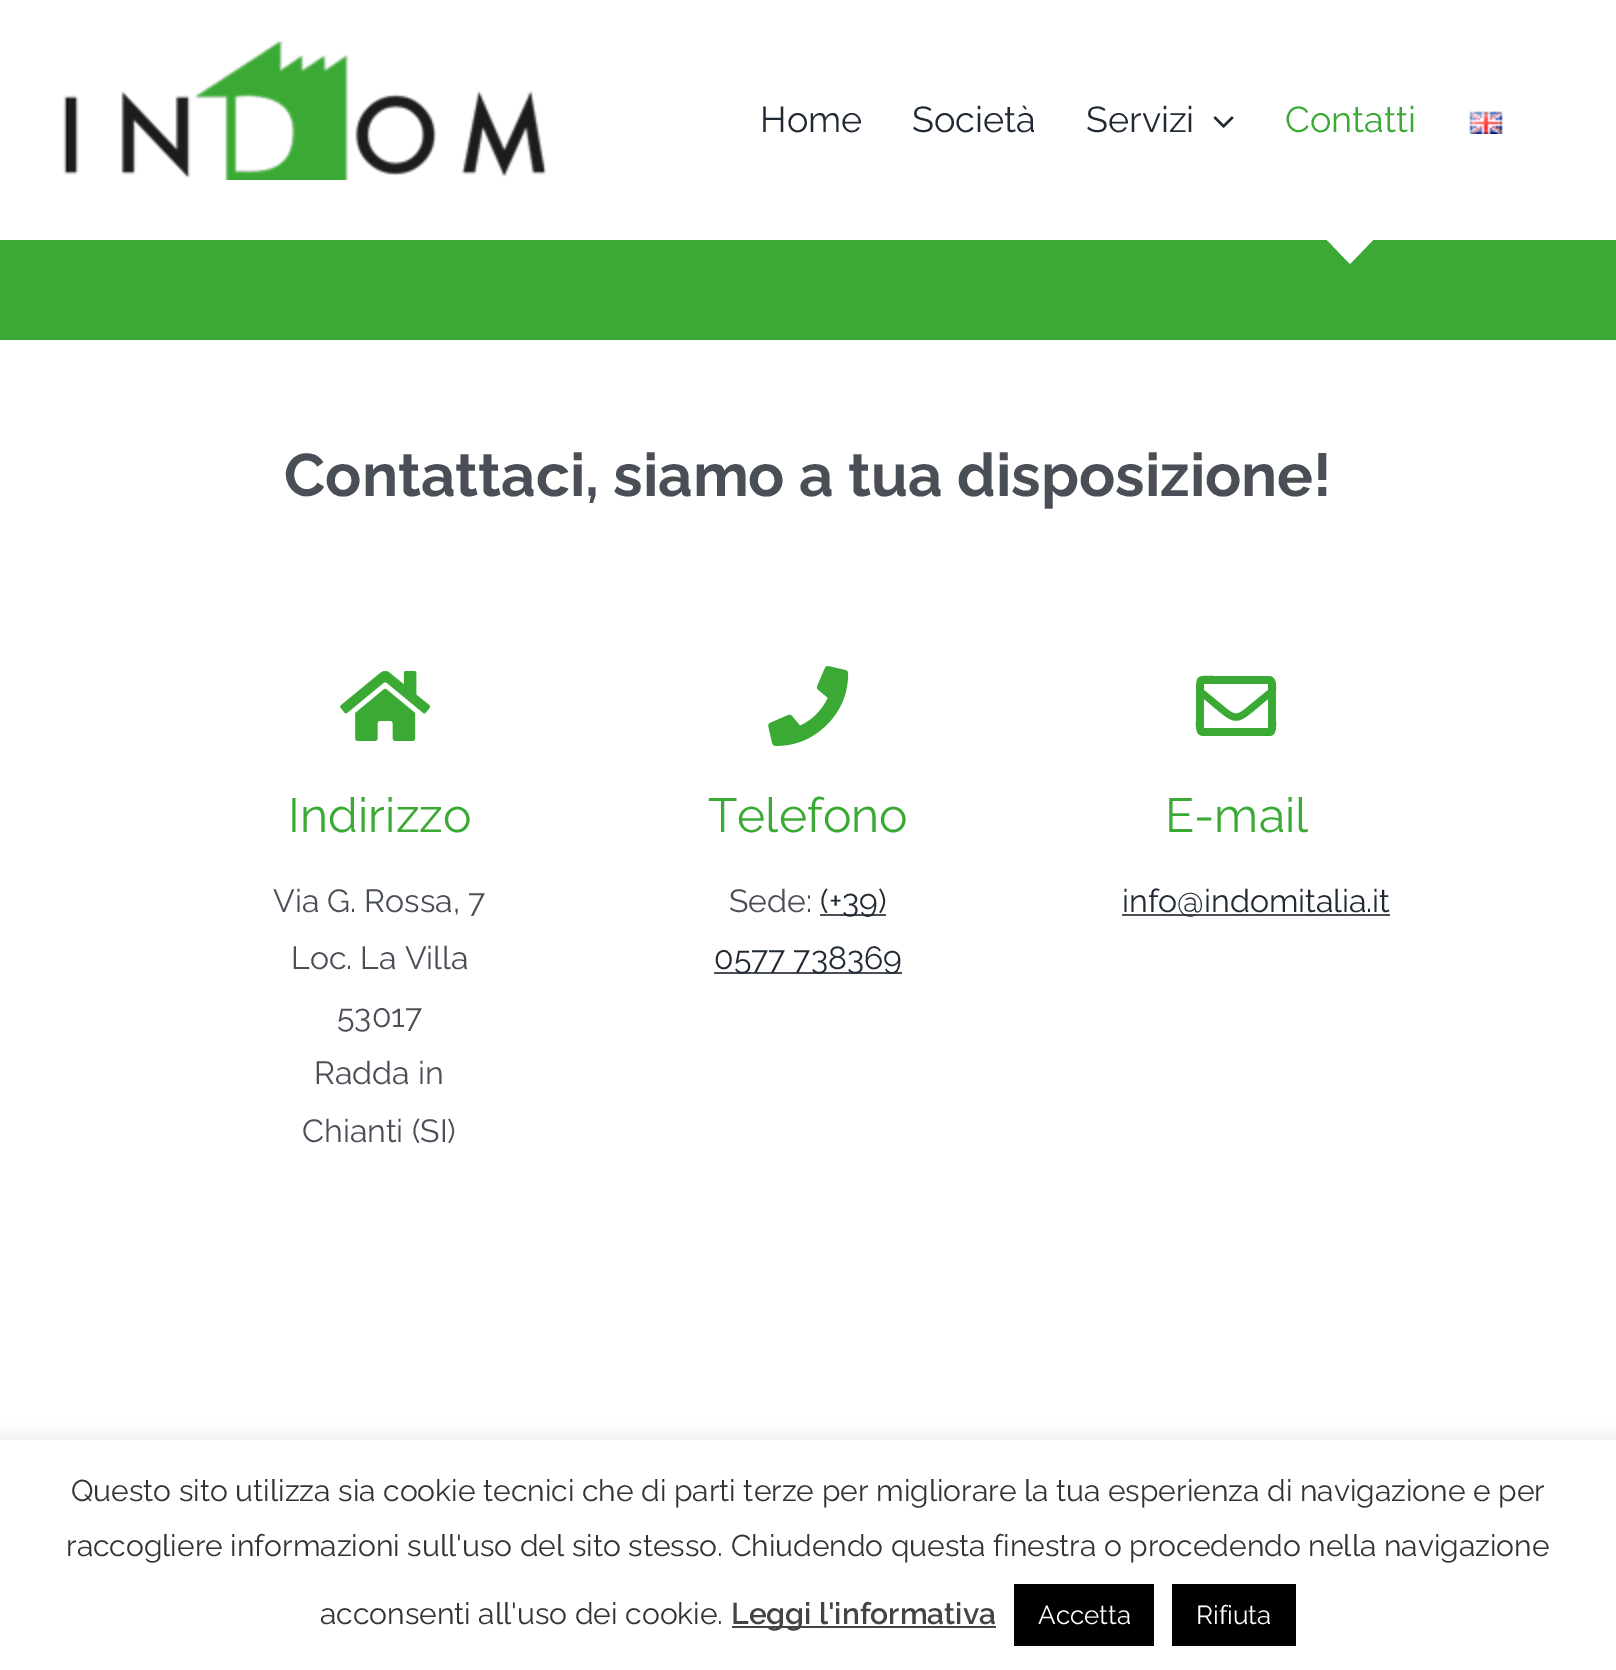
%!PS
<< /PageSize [1616 1670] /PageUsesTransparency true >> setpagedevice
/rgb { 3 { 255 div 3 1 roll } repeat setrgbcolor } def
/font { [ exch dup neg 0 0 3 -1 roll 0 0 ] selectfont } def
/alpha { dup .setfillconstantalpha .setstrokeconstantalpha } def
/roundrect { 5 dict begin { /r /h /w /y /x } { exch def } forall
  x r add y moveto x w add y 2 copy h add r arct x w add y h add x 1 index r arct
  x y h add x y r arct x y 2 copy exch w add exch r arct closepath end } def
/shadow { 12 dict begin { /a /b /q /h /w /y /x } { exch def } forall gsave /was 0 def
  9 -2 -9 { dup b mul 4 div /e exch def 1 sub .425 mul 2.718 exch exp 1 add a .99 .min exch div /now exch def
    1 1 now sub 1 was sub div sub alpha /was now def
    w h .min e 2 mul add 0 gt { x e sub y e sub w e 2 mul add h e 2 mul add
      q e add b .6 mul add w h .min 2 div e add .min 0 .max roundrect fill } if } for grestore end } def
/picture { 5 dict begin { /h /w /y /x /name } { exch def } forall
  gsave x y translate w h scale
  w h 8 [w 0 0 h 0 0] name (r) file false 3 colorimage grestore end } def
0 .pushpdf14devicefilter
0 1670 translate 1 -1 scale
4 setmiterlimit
255 255 255 rgb
0 0 1616 1670 rectfill
(img/1.rgb) 63 40 484 140 picture
(img/2.rgb) 1213 116 21 12 picture
58 170 53 rgb
0 240 1616 100 rectfill
255 255 255 rgb
1327 240 moveto 1350 264 lineto 1373 240 lineto closepath fill
(img/3.rgb) 1469 111 34 23 picture
(img/4.rgb) 340 671 91 70 picture
(img/5.rgb) 768 666 81 80 picture
74 78 87 rgb
820 914 66 2 rectfill
714 972 188 2 rectfill
58 170 53 rgb
1268 676 moveto 1277 676 1276 685 1276 691 curveto 1276 721 lineto 1276 726 1277 735 1270 736 curveto 1204 736 lineto 1195 736 1196 727 1196 721 curveto 1196 691 lineto 1196 674 1198 676 1214 676 curveto closepath 1268 684 moveto 1204 684 lineto 1204 690 lineto 1227 709 lineto 1235 715 1237 715 1245 709 curveto 1268 690 lineto closepath 1204 728 moveto 1268 728 lineto 1268 699 lineto 1233 728 1239 728 1204 699 curveto closepath fill
74 78 87 rgb
1122 914 268 2 rectfill
gsave
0 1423 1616 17 rectclip
172 171 171 rgb
0 1438 1616 230 0 10 0.3 shadow
grestore
[
  [732 1626 264 2 68 68 68]
  [1014 1584 140 62 0 0 0]
  [1172 1584 124 62 0 0 0]
] { aload pop rgb rectfill } forall
/Raleway-Regular 36 font
33 41 52 rgb
[
  [(Home) 760 132]
  [(Società) 912 132]
  [(Servizi) 1086 132]
] { aload pop moveto show } forall
58 170 53 rgb
1285 132 moveto (Contatti) show
/Raleway-Bold 60 font
74 78 87 rgb
284 496 moveto (Contattaci, siamo a tua disposizione!) show
/Raleway-Regular 48 font
58 170 53 rgb
288 832 moveto (Indirizzo) show
/Raleway-Regular 32 font
74 78 87 rgb
[
  [(Via G. Rossa, 7) 273 912]
  [(Loc. La Villa) 291 969]
  [(53017) 337 1027]
  [(Radda in) 314 1084]
  [(Chianti \(SI\)) 302 1142]
] { aload pop moveto show } forall
/Raleway-Regular 48 font
58 170 53 rgb
708 832 moveto (Telefono) show
/Raleway-Regular 32 font
74 78 87 rgb
729 912 moveto (Sede:) show
33 41 52 rgb
820 912 moveto (\(+39\)) show
714 969 moveto (0577 738369) show
/Raleway-Regular 48 font
58 170 53 rgb
1165 832 moveto (E-mail) show
/Raleway-Regular 32 font
33 41 52 rgb
1122 912 moveto (info@indomitalia.it) show
/Raleway-Regular 30 font
51 51 51 rgb
[
  [(Questo sito utilizza sia cookie tecnici che di parti terze per migliorare la tua esperienza di navigazione e per) 71 1501]
  [(raccogliere informazioni sull'uso del sito stesso. Chiudendo questa finestra o procedendo nella navigazione) 66 1556]
  [(acconsenti all'uso dei cookie.) 320 1624]
] { aload pop moveto show } forall
/Raleway-SemiBold 30 font
68 68 68 rgb
731 1624 moveto (Leggi l'informativa) show
/Raleway-Regular 26 font
255 255 255 rgb
1038 1624 moveto (Accetta) show
1196 1624 moveto (Rifiuta) show
.poppdf14devicefilter showpage
